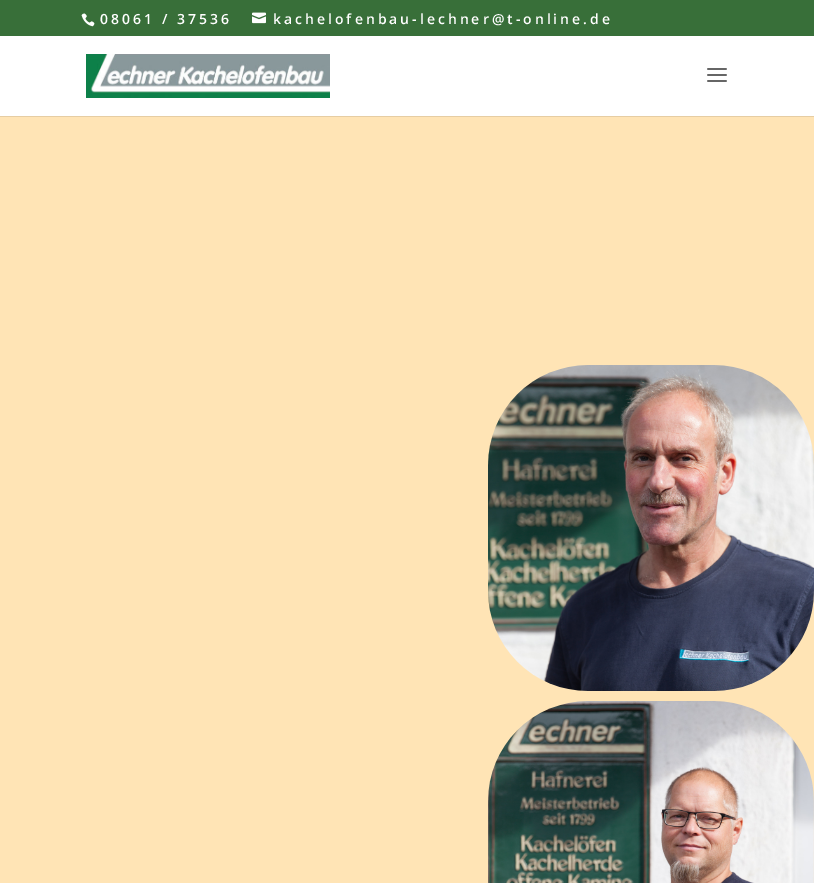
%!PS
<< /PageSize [814 883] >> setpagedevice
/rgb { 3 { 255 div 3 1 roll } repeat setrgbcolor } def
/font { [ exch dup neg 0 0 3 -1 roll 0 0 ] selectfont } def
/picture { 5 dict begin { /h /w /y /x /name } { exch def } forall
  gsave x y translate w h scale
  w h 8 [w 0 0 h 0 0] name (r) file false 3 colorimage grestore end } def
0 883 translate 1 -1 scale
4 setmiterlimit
255 228 181 rgb
0 0 814 883 rectfill
56 111 57 rgb
0 0 814 36 rectfill
(img/1.rgb) 81 13 14 14 picture
(img/2.rgb) 252 12 14 12 picture
230 205 163 rgb
0 116 814 1 rectfill
255 255 255 rgb
0 36 814 80 rectfill
(img/3.rgb) 86 54 244 44 picture
(img/4.rgb) 707 68 20 14 picture
(img/5.rgb) 488 365 326 326 picture
(img/6.rgb) 488 701 326 182 picture
/OpenSans-SemiBold 14 font
100 24 moveto 3 0 (08061 / 37536) ashow
273 24 moveto 3 0 (kachelofenbau-lechner@t-online.de) ashow
showpage
